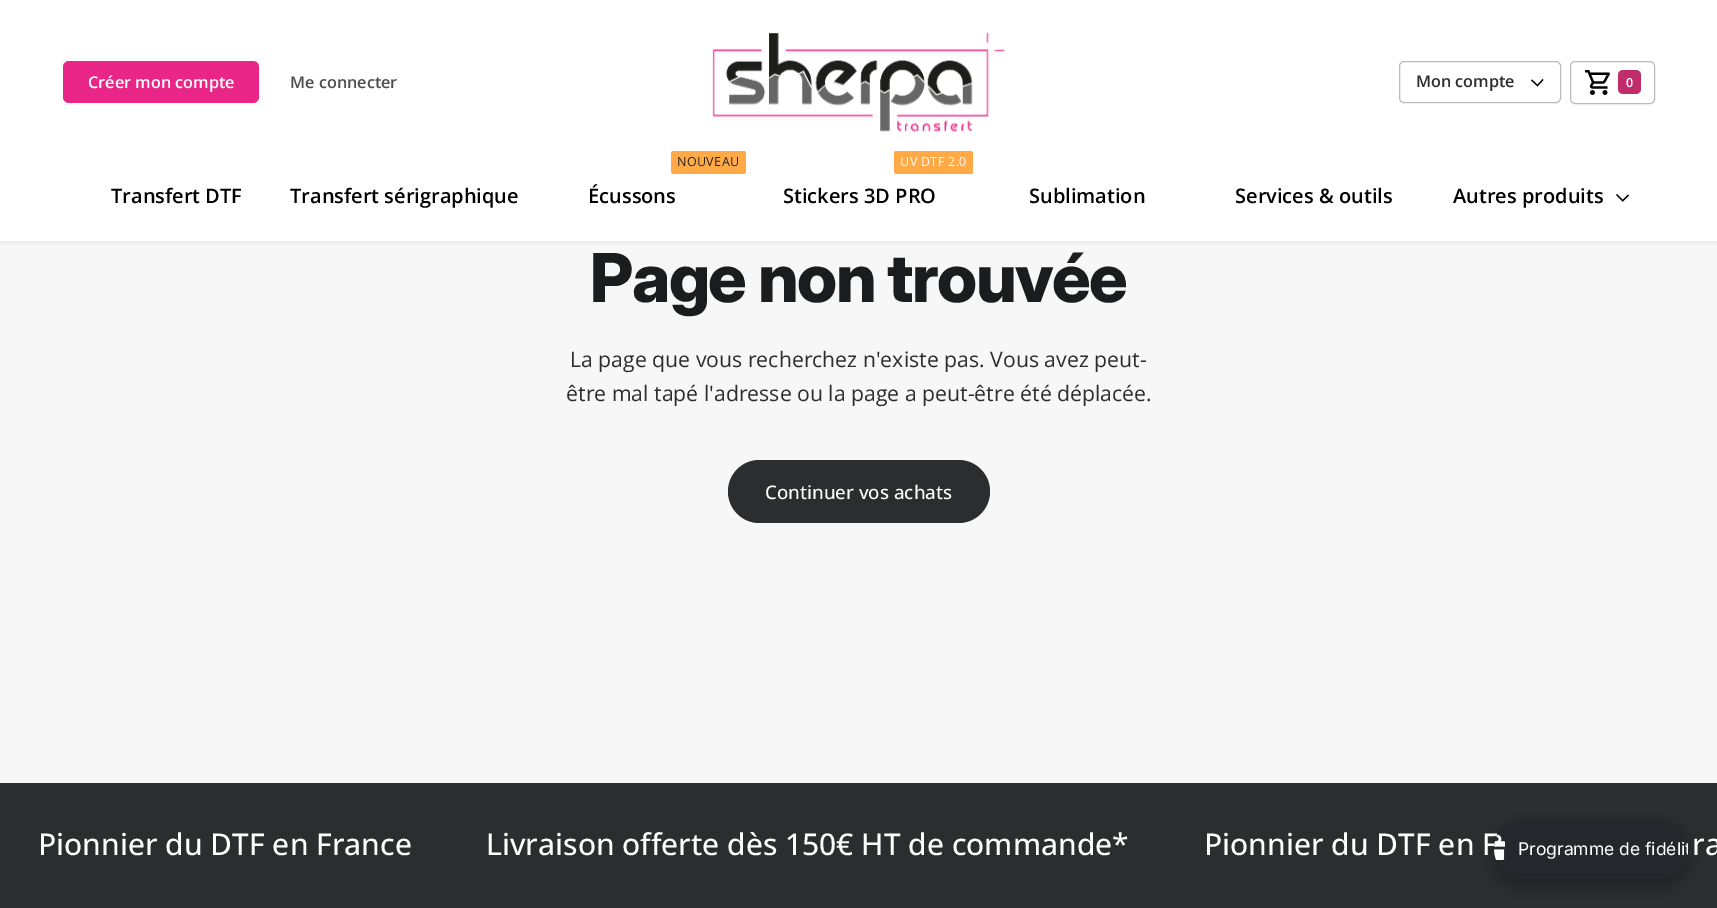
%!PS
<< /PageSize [1717 908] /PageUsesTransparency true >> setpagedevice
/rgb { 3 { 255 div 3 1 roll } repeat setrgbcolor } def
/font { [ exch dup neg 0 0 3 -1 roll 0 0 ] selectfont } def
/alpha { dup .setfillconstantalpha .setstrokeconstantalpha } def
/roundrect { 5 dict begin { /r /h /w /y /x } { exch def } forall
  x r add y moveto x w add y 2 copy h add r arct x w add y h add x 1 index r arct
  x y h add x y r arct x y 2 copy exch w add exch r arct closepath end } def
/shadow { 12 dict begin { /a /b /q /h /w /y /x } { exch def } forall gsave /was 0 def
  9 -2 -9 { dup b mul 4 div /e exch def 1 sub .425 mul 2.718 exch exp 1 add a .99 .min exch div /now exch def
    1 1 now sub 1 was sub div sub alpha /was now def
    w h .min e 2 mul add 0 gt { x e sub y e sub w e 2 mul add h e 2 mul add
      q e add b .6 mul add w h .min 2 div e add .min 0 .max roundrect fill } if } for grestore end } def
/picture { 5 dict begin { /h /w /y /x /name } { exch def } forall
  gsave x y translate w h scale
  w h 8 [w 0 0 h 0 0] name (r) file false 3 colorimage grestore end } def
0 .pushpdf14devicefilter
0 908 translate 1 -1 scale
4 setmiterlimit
247 247 247 rgb
0 0 1717 908 rectfill
255 255 255 rgb
0 0 1717 241 rectfill
gsave
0 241 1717 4 rectclip
0 0 0 rgb
0 3 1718 241 0 3 0.06 shadow
grestore
233 37 135 rgb
63 61 196 42 6 roundrect fill
(img/1.rgb) 712 32 293 100 picture
187 187 187 rgb
1399.5 61.5 161 41 4.5 roundrect stroke
0 0 0 rgb
1.2 setlinewidth
1531.5 80 moveto 1538 86 lineto 1537 86 moveto 1543 79.5 lineto stroke
187 187 187 rgb
1 setlinewidth
1570.5 61.5 84 42 4.5 roundrect stroke
(img/2.rgb) 1585 70 25 25 picture
192 45 106 rgb
1618 70 23 24 5 roundrect fill
255 170 71 rgb
671 151 75 23 2.5 roundrect fill
894 151 79 23 2.5 roundrect fill
0 0 0 rgb
1.2 setlinewidth
1616.5 194.5 moveto 1623 201 lineto 1628.5 195 moveto 1622.5 201 lineto stroke
44 45 46 rgb
728 460 262 63 31.5 roundrect fill
0 783 1717 125 rectfill
0 0 0 rgb
1494 826 194 60 30 7.5 0.25 shadow
/OpenSans-SemiBold 16.25 font
255 255 255 rgb
88 88 moveto (Créer mon compte) show
77 78 80 rgb
290 88 moveto (Me connecter) show
44 45 46 rgb
1416 87 moveto (Mon compte) show
/OpenSans-SemiBold 12.5 font
255 255 255 rgb
1626 87 moveto (0) show
/OpenSans-SemiBold 20 font
0 0 0 rgb
111 203 moveto (Transfert DTF) show
290 203 moveto (Transfert sérigraphique) show
/OpenSans-Regular 12.5 font
39 36 34 rgb
677 166 moveto 0.4 0 (NOUVEAU) ashow
/OpenSans-SemiBold 20 font
0 0 0 rgb
588 203 moveto (Écussons) show
/OpenSans-Regular 12.5 font
255 255 255 rgb
900 166 moveto 0.4 0 (UV DTF 2.0) ashow
/OpenSans-SemiBold 20 font
0 0 0 rgb
[
  [(Stickers 3D PRO) 783 203]
  [(Sublimation) 1029 203]
  [(Services & outils) 1235 203]
  [(Autres produits) 1453 203]
] { aload pop moveto show } forall
/Inter-ExtraBold 67.5 font
26 28 29 rgb
590 302 moveto -1.4 0 (Page non trouvée) ashow
/OpenSans-Regular 21.25 font
44 45 46 rgb
570 367 moveto (La page que vous recherchez n'existe pas. Vous avez peut-) show
566 401 moveto (être mal tapé l'adresse ou la page a peut-être été déplacée.) show
/OpenSans-Medium 18.75 font
255 255 255 rgb
765 499 moveto (Continuer vos achats) show
/OpenSans-Medium 30 font
[
  [(Pionnier du DTF en France) 38 855]
  [(Livraison offerte dès 150€ HT de commande*) 486 855]
  [(Pionnier du DTF en F) 1204 855]
  [(ra) 1692 855]
] { aload pop moveto show } forall
37 39 44 rgb
1494 819 194 60 30 roundrect fill
(img/3.rgb) 1494 834 11 26 picture
gsave
1494 819 194 60 30 roundrect clip newpath
/Inter-Regular 17.5 font
255 255 255 rgb
1518 855 moveto (Programme de fidélit) show
grestore
.poppdf14devicefilter showpage
